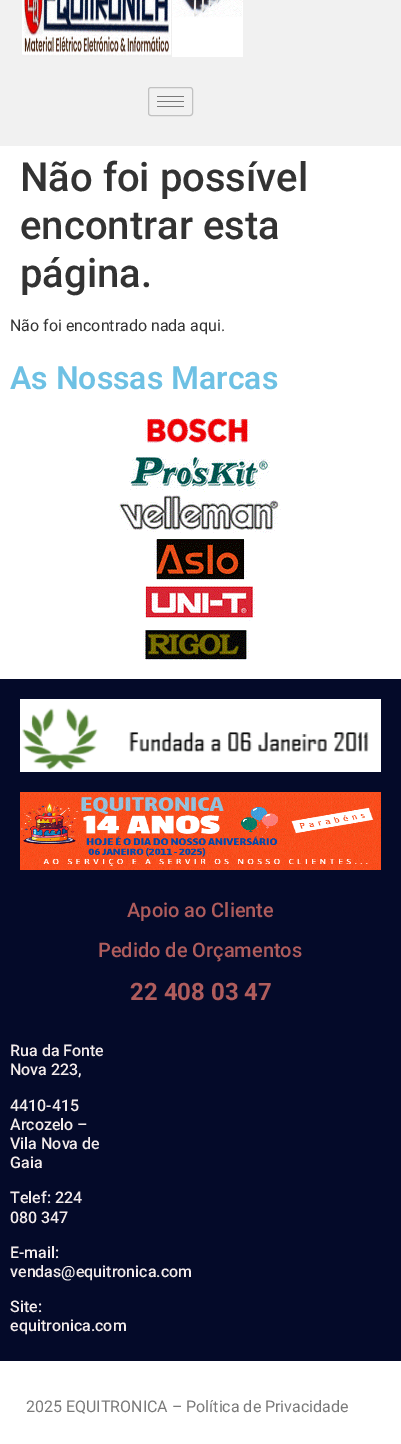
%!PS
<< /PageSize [401 1444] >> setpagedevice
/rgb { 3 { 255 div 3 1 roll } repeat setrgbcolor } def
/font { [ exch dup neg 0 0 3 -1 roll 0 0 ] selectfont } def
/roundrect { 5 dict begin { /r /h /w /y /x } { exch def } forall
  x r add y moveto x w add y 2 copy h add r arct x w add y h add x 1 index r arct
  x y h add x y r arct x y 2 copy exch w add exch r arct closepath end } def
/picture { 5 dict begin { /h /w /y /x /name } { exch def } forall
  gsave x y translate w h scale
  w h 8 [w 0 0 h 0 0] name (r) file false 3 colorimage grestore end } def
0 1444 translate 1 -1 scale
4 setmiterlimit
255 255 255 rgb
0 0 401 1444 rectfill
241 241 241 rgb
0 0 401 146 rectfill
(img/1.rgb) 22 0 221 57 picture
193 193 193 rgb
148.5 87.5 44 28 2.5 roundrect stroke
[
  [157 96 27 1 121 121 121]
  [157 101 27 1 121 121 121]
  [157 106 27 1 121 121 121]
] { aload pop rgb rectfill } forall
(img/2.rgb) 145 417 105 28 picture
(img/3.rgb) 129 455 141 37 picture
(img/4.rgb) 118 495 163 38 picture
(img/5.rgb) 154 539 93 41 picture
(img/6.rgb) 144 586 111 35 picture
(img/7.rgb) 143 630 106 30 picture
4 10 41 rgb
0 679 401 682 rectfill
(img/8.rgb) 20 699 361 73 picture
(img/9.rgb) 20 792 361 78 picture
/Roboto-Medium 40 font
51 51 51 rgb
[
  [(Não foi possível) 20 191]
  [(encontrar esta) 20 239]
  [(página.) 20 287]
] { aload pop moveto show } forall
/Roboto-Regular 16 font
10 331 moveto (Não foi encontrado nada aqui.) show
/Roboto-SemiBold 32 font
110 193 228 rgb
10 389 moveto (As Nossas Marcas) show
/Roboto-Medium 20 font
175 92 92 rgb
127 917 moveto (Apoio ao Cliente) show
98 957 moveto (Pedido de Orçamentos) show
/Roboto-Bold 24 font
130 1000 moveto (22 408 03 47) show
/Roboto-Medium 16 font
243 235 235 rgb
[
  [(Rua da Fonte) 10 1056]
  [(Nova 223,) 10 1075]
  [(4410-415) 10 1111]
  [(Arcozelo –) 10 1130]
  [(Vila Nova de) 10 1149]
  [(Gaia) 10 1168]
  [(Telef: 224) 10 1203]
  [(080 347) 10 1223]
  [(E-mail:) 10 1258]
  [(vendas@equitronica.com) 10 1277]
  [(Site:) 10 1312]
  [(equitronica.com) 10 1331]
] { aload pop moveto show } forall
/Roboto-Regular 16 font
122 122 122 rgb
26 1412 moveto (2025 EQUITRONICA – Política de Privacidade) show
showpage
